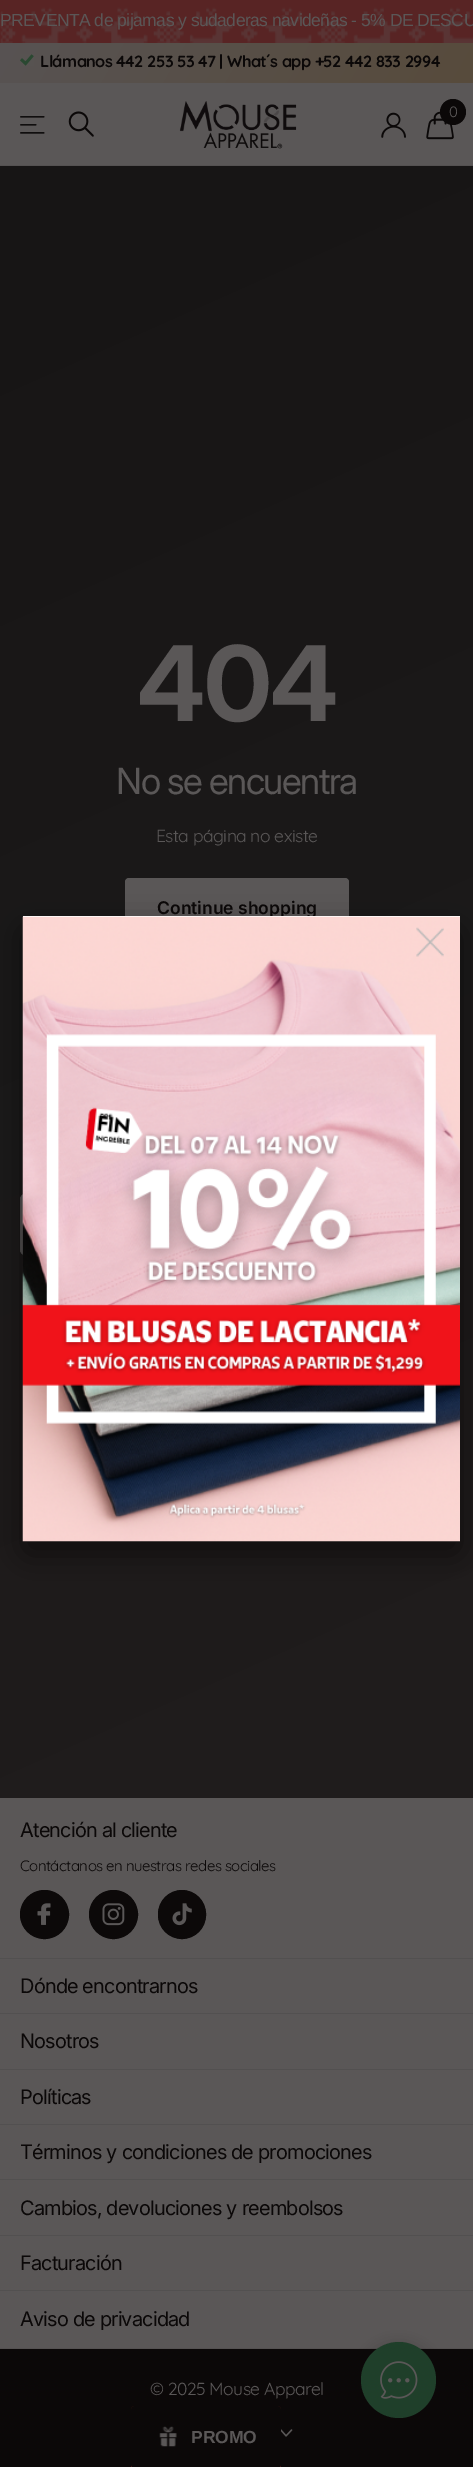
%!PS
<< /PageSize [473 2467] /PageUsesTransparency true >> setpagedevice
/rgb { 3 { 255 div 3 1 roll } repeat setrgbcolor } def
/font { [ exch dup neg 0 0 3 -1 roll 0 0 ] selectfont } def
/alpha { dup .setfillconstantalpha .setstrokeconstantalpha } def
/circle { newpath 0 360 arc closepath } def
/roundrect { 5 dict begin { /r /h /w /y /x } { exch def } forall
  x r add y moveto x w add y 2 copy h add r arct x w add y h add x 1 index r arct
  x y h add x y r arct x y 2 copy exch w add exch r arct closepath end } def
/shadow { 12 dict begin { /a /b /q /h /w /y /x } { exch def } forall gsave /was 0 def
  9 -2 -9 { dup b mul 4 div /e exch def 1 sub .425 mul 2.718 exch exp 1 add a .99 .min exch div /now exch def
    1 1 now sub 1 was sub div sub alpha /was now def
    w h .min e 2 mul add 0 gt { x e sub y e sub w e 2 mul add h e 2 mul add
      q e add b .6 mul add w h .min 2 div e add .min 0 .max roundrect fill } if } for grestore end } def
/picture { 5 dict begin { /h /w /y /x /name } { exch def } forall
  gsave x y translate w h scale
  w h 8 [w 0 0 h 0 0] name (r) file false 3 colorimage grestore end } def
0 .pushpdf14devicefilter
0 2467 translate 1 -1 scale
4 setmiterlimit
255 255 255 rgb
0 0 473 2467 rectfill
(img/1.rgb) 0 0 473 43 picture
gsave 0 43 moveto 473 43 lineto 473 83 lineto 0 83 lineto closepath clip newpath
<< /ShadingType 2 /ColorSpace /DeviceRGB /Coords [32 -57 442 179] /Extend [true true] /Function << /FunctionType 2 /Domain [0 1] /C0 [0.341 0.329 0.329] /C1 [0.345 0.294 0.231] /N 1 >> >> shfill grestore
(img/2.rgb) 20 54 14 12 picture
90 87 87 rgb
0 83 473 82 rectfill
84 81 81 rgb
0 165 473 1 rectfill
(img/3.rgb) 20 116 25 18 picture
(img/4.rgb) 68 111 26 26 picture
(img/5.rgb) 179 101 118 48 picture
(img/6.rgb) 381 112 25 26 picture
(img/7.rgb) 426 111 28 29 picture
11 8 8 rgb
453 112 13 circle fill
gsave 0 166 moveto 473 166 lineto 473 1798 lineto 0 1798 lineto closepath clip newpath
<< /ShadingType 2 /ColorSpace /DeviceRGB /Coords [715 2411 -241 263] /Extend [true true] /Function << /FunctionType 3 /Domain [0 1] /Functions [<< /FunctionType 2 /Domain [0 1] /C0 [0.137 0.125 0.125] /C1 [0.137 0.125 0.125] /N 1 >> << /FunctionType 2 /Domain [0 1] /C0 [0.137 0.125 0.125] /C1 [0.09 0.082 0.082] /N 1 >>] /Bounds [0.04] /Encode [0 1 0 1] >> >> shfill grestore
90 87 87 rgb
125 878 224 61 4 roundrect fill
20.5 1194.5 433 60 4.5 roundrect gsave fill grestore
85 82 82 rgb
stroke
90 87 87 rgb
0 1798 473 550 rectfill
12 9 9 rgb
44.5 1914.5 24 circle gsave fill grestore
stroke
(img/8.rgb) 37 1903 14 22 picture
113.5 1914.5 24 circle gsave fill grestore
stroke
(img/9.rgb) 102 1903 23 23 picture
158.5 1890.5 47 48 23.5 roundrect gsave fill grestore
stroke
(img/10.rgb) 172 1903 20 23 picture
[
  [0 1958 473 1 82 80 80]
  [0 2013 473 1 82 80 80]
  [0 2069 473 1 82 80 80]
  [0 2124 473 1 82 80 80]
  [0 2179 473 1 82 80 80]
  [0 2235 473 1 82 80 80]
  [0 2290 473 1 82 80 80]
  [0 2349 473 118 11 8 8]
  [0 2348 473 1 84 81 81]
] { aload pop rgb rectfill } forall
(img/11.rgb) 281 2429 12 8 picture
0 0 0 rgb
23 929 437 625 5 15.5 0.5 shadow
76 24 19 rgb
135 2406 moveto 277 2406 lineto 279 2406 281 2408 281 2410 curveto 281 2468 lineto 131 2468 lineto 131 2410 lineto 131 2408 133 2406 135 2406 curveto closepath fill
11 8 8 rgb
131 2406 150 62 4 roundrect fill
(img/14.rgb) 159 2426 18 21 picture
361 2343 75 75 37.5 6 0.2 shadow
31 63 42 rgb
399 2418 moveto 378 2418 361 2401 361 2380 curveto 361 2359 378 2342 399 2342 curveto 419 2342 436 2359 436 2380 curveto 436 2401 419 2418 399 2418 curveto closepath fill
(img/15.rgb) 380 2361 38 38 picture
/LiberationSans-Regular 17.5 font
90 87 87 rgb
0 26 moveto -0.53 0 (PREVENTA de pijamas y sudaderas navideñas - 5% DE DESCU) ashow
/Quicksand-Bold 16.25 font
11 8 8 rgb
40 67 moveto -0.53 0 (Llámanos 442 253 53 47 | What´s app +52 442 833 2994) ashow
/Quicksand-Regular 15 font
90 87 87 rgb
449 117 moveto (0) show
/Inter-Bold 104 font
137 721 moveto -1.5 0 (404) ashow
/Inter-Regular 36.25 font
116 794 moveto -1.5 0 (No se encuentra) ashow
/Quicksand-Regular 17.5 font
156 842 moveto -0.53 0 (Esta página no existe) ashow
/Inter-SemiBold 17.5 font
11 8 8 rgb
157 914 moveto (Continue shopping) show
/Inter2-Regular 20 font
20 1837 moveto -0.8 0 (Atención al cliente) ashow
/Quicksand-Regular 15 font
20 1871 moveto -0.53 0 (Contáctanos en nuestras redes sociales) ashow
/Inter2-Regular 20 font
20 1993 moveto -0.8 0 (Dónde encontrarnos) ashow
20 2048 moveto -0.8 0 (Nosotros) ashow
20 2104 moveto -0.8 0 (Políticas) ashow
20 2159 moveto -0.8 0 (Términos y condiciones de promociones) ashow
20 2215 moveto -0.8 0 (Cambios, devoluciones y reembolsos) ashow
20 2270 moveto -0.8 0 (Facturación) ashow
20 2326 moveto -0.8 0 (Aviso de privacidad) ashow
/Quicksand-Regular 17.5 font
90 87 87 rgb
150 2395 moveto -0.53 0 (© 2025 Mouse Apparel) ashow
255 255 255 rgb
23 916 437 1 rectfill
(img/12.rgb) 22 916 438 626 picture
(img/13.rgb) 416 927 28 30 picture
/LiberationSans-Bold 17.5 font
90 87 87 rgb
191 2443 moveto (PROMO) show
.poppdf14devicefilter showpage
